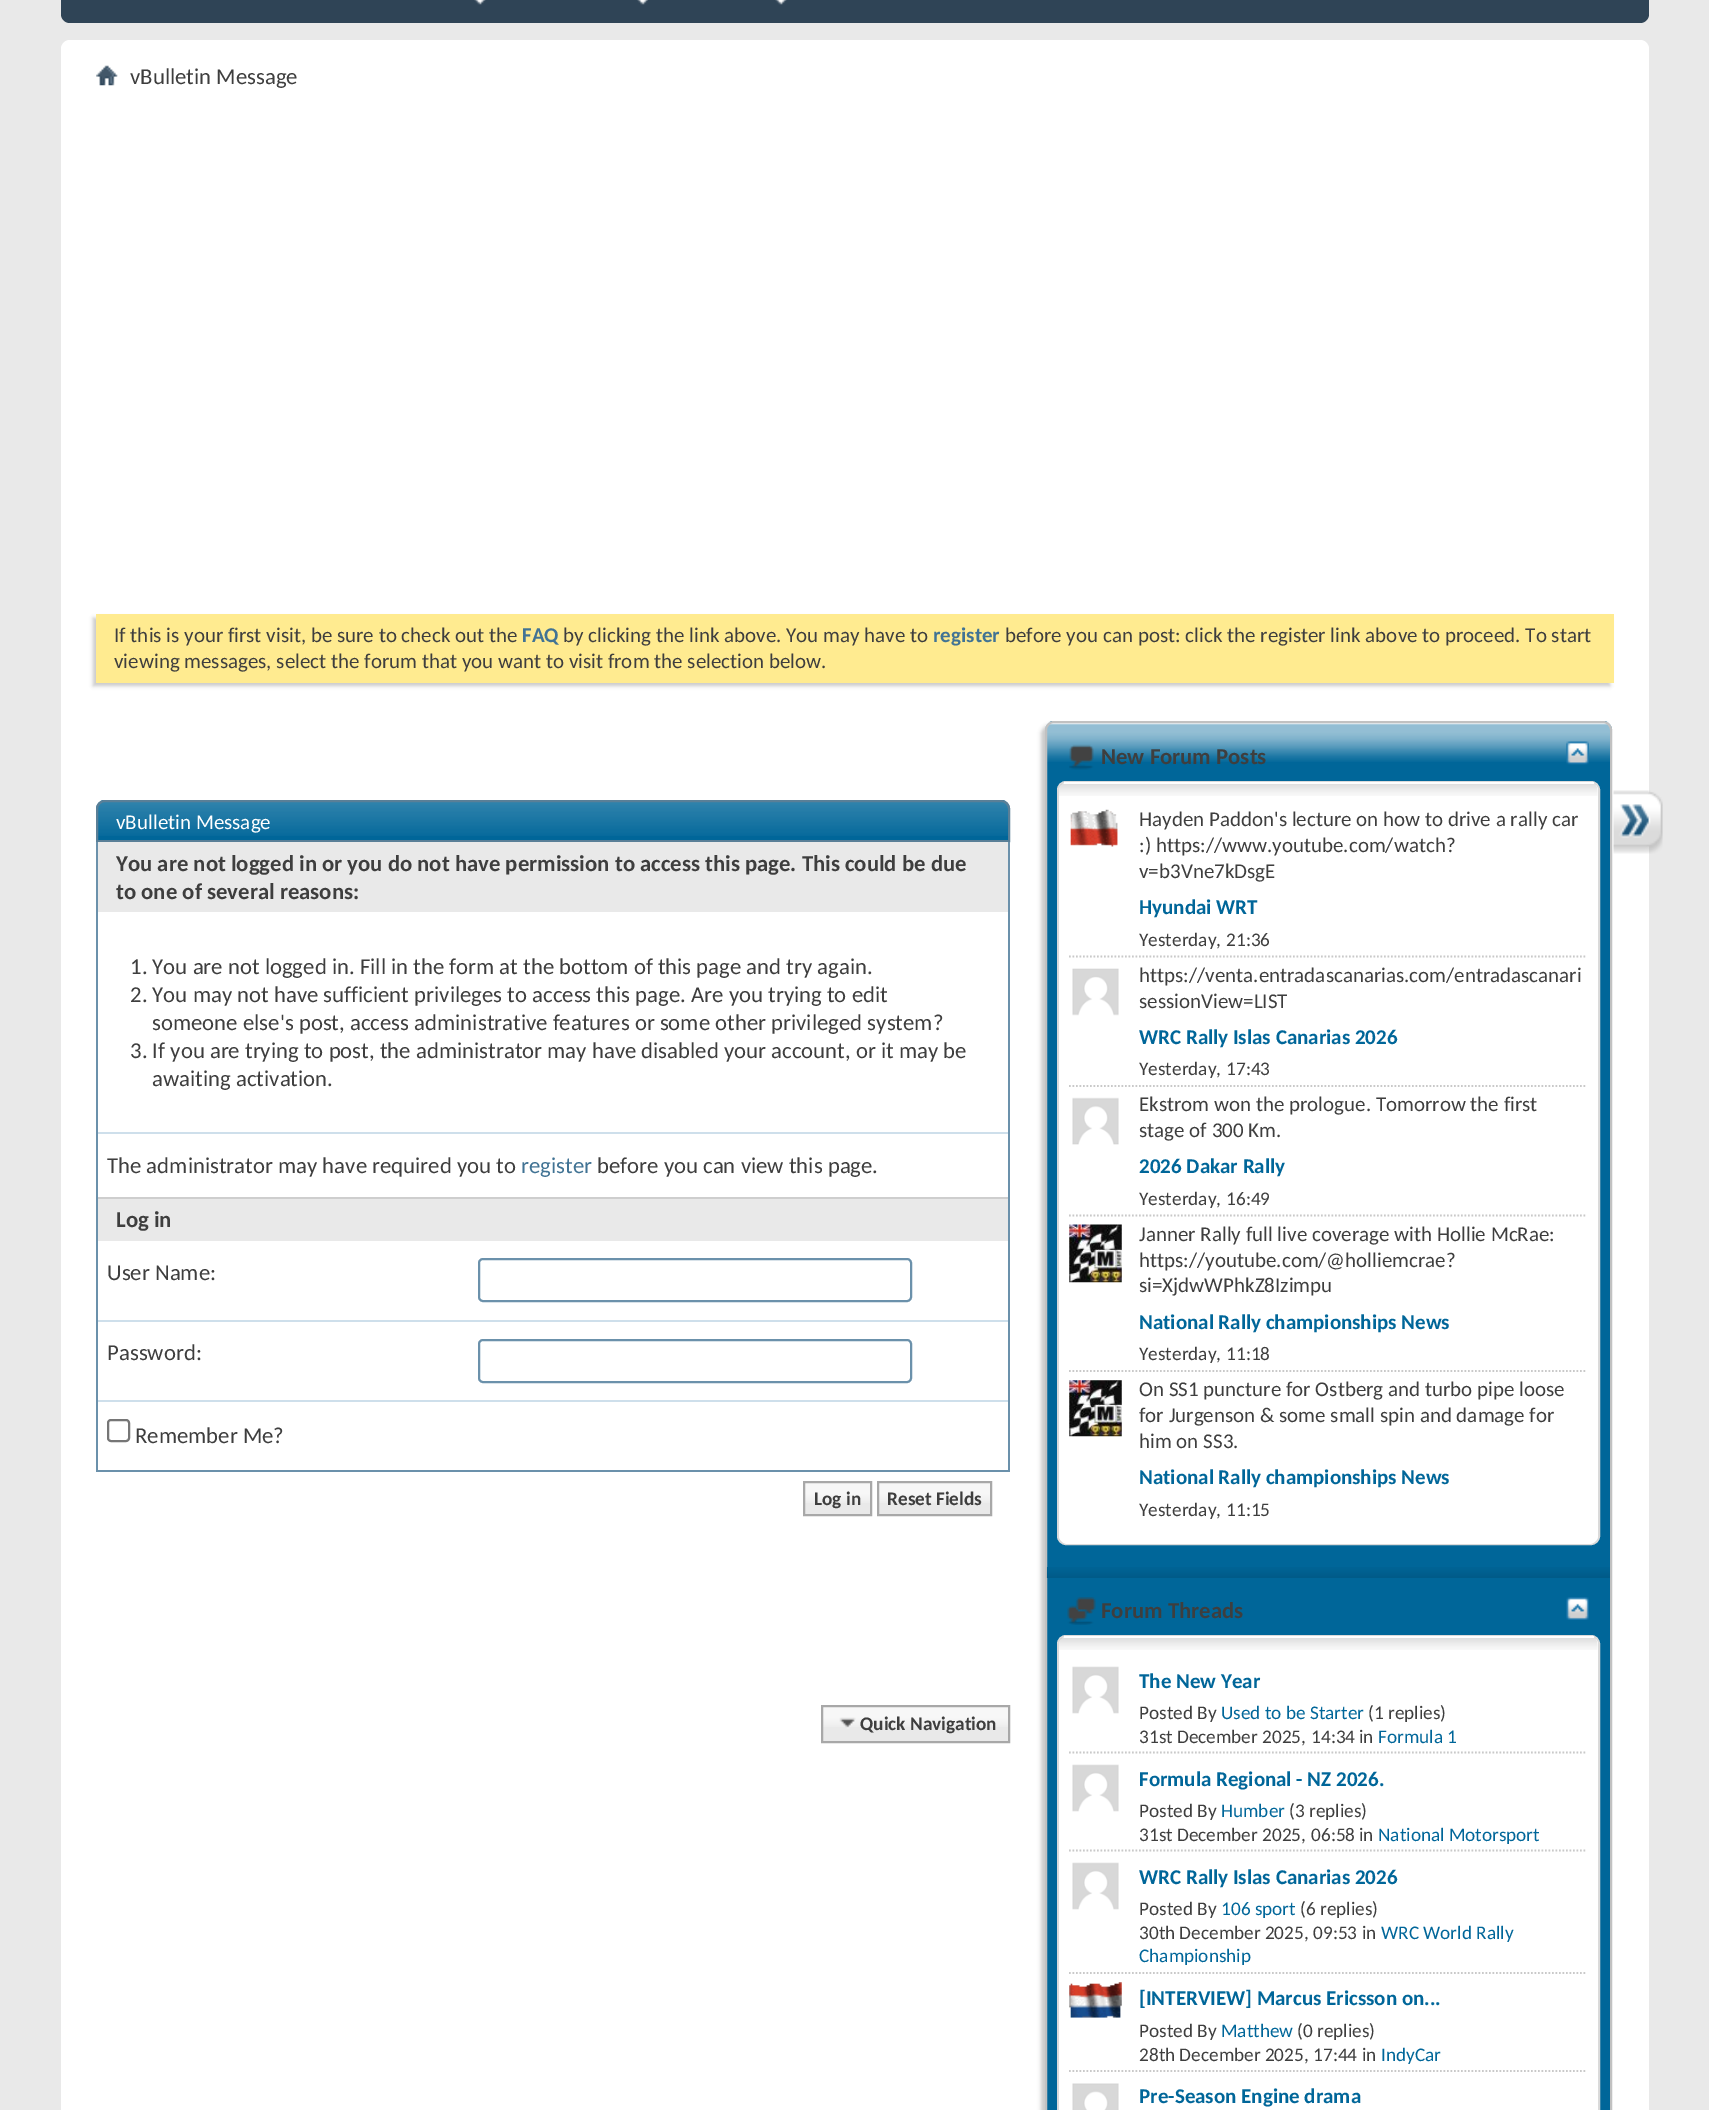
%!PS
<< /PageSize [1709 2110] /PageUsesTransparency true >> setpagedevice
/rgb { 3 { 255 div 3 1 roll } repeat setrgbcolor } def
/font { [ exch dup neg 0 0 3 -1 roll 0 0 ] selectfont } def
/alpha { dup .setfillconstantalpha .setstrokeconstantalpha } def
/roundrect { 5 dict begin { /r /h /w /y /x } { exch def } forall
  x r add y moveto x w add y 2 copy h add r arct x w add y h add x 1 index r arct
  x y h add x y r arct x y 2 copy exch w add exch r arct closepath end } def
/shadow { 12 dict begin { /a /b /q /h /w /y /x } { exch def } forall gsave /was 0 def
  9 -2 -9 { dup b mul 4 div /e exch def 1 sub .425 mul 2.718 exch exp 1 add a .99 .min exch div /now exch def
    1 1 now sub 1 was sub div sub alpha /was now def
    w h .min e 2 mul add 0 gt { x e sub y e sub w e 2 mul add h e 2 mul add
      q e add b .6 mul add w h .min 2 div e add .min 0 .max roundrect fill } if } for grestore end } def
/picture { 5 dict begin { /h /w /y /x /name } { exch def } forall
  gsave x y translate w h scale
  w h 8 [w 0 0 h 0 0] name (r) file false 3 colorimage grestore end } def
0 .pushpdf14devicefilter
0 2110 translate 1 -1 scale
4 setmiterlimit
233 233 233 rgb
0 0 1709 2110 rectfill
47 68 86 rgb
61 -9 moveto 1649 -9 lineto 1649 14 lineto 1649 19 1645 23 1640 23 curveto 70 23 lineto 65 23 61 19 61 14 curveto closepath fill
(img/1.rgb) 474 0 12 5 picture
(img/2.rgb) 637 0 11 5 picture
(img/3.rgb) 775 0 12 5 picture
255 255 255 rgb
61 40 1588 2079 9 roundrect fill
(img/4.rgb) 96 65 22 21 picture
200 200 200 rgb
93 618 1517 68 0 2 1 shadow
255 235 144 rgb
96 614 1518 69 rectfill
0 102 153 rgb
105 800 moveto 1001 800 lineto 1006 800 1010 804 1010 809 curveto 1010 842 lineto 96 842 lineto 96 809 lineto 96 804 100 800 105 800 curveto closepath fill
(img/5.rgb) 96 801 914 35 picture
90 127 151 rgb
2 setlinewidth
105 801 moveto 1001 801 lineto 1005.5 801 1009 804.5 1009 809 curveto 1009 841 lineto 97 841 lineto 97 809 lineto 97 804.5 100.5 801 105 801 curveto closepath stroke
[
  [1008 842 2 630 107 145 171]
  [96 1470 914 2 107 145 171]
  [96 842 2 630 107 145 171]
  [98 842 910 70 233 233 233]
  [98 1132 910 2 206 223 235]
  [98 1199 910 42 233 233 233]
  [98 1197 910 2 206 206 206]
] { aload pop rgb rectfill } forall
107 145 171 rgb
479 1259 432 42 4 roundrect stroke
206 223 235 rgb
98 1320 910 2 rectfill
107 145 171 rgb
479 1340 432 42 4 roundrect stroke
206 223 235 rgb
98 1400 910 2 rectfill
118 118 118 rgb
108 1420 21 21 3 roundrect stroke
233 233 233 rgb
805 1483 65 31 rectfill
(img/6.rgb) 805 1483 65 20 picture
168 168 168 rgb
804 1482 67 33 rectstroke
233 233 233 rgb
879 1483 111 31 rectfill
(img/7.rgb) 879 1483 111 20 picture
168 168 168 rgb
878 1482 113 33 rectstroke
233 233 233 rgb
823 1707 185 34 rectfill
(img/8.rgb) 823 1707 185 20 picture
168 168 168 rgb
822 1706 187 36 rectstroke
(img/9.rgb) 839 1717 17 12 picture
(img/26.rgb) 1613 790 50 64 picture
200 200 200 rgb
1041 725 567 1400 9 2 1 shadow
0 102 153 rgb
1045 721 567 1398 9 roundrect fill
(img/10.rgb) 1045 722 567 40 picture
193 193 193 rgb
1046 722 565 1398 8 roundrect stroke
(img/11.rgb) 1069 744 25 26 picture
(img/12.rgb) 1566 741 23 24 picture
255 255 255 rgb
1058 782 541 762 8 roundrect gsave fill grestore
218 218 218 rgb
stroke
255 255 255 rgb
1059 782 539 762 9 roundrect fill
(img/13.rgb) 1059 783 539 13 picture
1064 782 530 2 rectfill
(img/14.rgb) 1070 809 48 38 picture
201 201 201 rgb
1.8 setlinewidth
[1.75 1.75] 0 setdash
1069 956.5 moveto 1587 956.5 lineto stroke
(img/15.rgb) 1072 968 47 48 picture
1069 1086 moveto 1587 1086 lineto stroke
(img/16.rgb) 1072 1097 47 48 picture
1069 1215.5 moveto 1587 1215.5 lineto stroke
(img/17.rgb) 1069 1224 53 59 picture
1069 1371 moveto 1587 1371 lineto stroke
(img/18.rgb) 1069 1380 53 57 picture
(img/19.rgb) 1046 1567 564 11 picture
(img/20.rgb) 1067 1597 29 28 picture
(img/21.rgb) 1566 1597 23 23 picture
255 255 255 rgb
1058 1636 541 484 8 roundrect gsave fill grestore
218 218 218 rgb
2 setlinewidth
[] 0 setdash
stroke
255 255 255 rgb
1059 1636 539 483 9 roundrect fill
(img/13.rgb) 1059 1637 539 13 picture
1064 1636 530 2 rectfill
(img/22.rgb) 1072 1666 47 48 picture
201 201 201 rgb
1.8 setlinewidth
[1.75 1.75] 0 setdash
1069 1752.5 moveto 1587 1752.5 lineto stroke
(img/23.rgb) 1072 1764 47 48 picture
1069 1850.5 moveto 1587 1850.5 lineto stroke
(img/23.rgb) 1072 1862 47 48 picture
1069 1973 moveto 1587 1973 lineto stroke
(img/24.rgb) 1069 1982 53 36 picture
1069 2071 moveto 1587 2071 lineto stroke
(img/25.rgb) 1072 2083 47 27 picture
/Carlito-Regular 22.75 font
62 62 62 rgb
130 84 moveto (vBulletin Message) show
/Carlito-Regular 21 font
114 642 moveto (If this is your first visit, be sure to check out the) show
/Carlito-Bold 21 font
65 115 148 rgb
522 642 moveto (FAQ) show
/Carlito-Regular 21 font
62 62 62 rgb
563 642 moveto (by clicking the link above. You may have to) show
/Carlito-Bold 21 font
65 115 148 rgb
933 642 moveto (register) show
/Carlito-Regular 21 font
62 62 62 rgb
1005 642 moveto (before you can post: click the register link above to proceed. To start) show
114 668 moveto (viewing messages, select the forum that you want to visit from the selection below.) show
255 255 255 rgb
116 829 moveto (vBulletin Message) show
/Carlito-Bold 22.75 font
62 62 62 rgb
116 871 moveto (You are not logged in or you do not have permission to access this page. This could be due) show
116 899 moveto (to one of several reasons:) show
/Carlito-Regular 22.75 font
[
  [(1. You are not logged in. Fill in the form at the bottom of this page and try again.) 130 974]
  [(2. You may not have sufficient privileges to access this page. Are you trying to edit) 130 1002]
  [(someone else's post, access administrative features or some other privileged system?) 152 1030]
  [(3. If you are trying to post, the administrator may have disabled your account, or it may be) 130 1058]
  [(awaiting activation.) 152 1086]
  [(The administrator may have required you to) 107 1173]
] { aload pop moveto show } forall
65 115 148 rgb
521 1173 moveto (register) show
62 62 62 rgb
597 1173 moveto (before you can view this page.) show
/Carlito-Bold 22.75 font
116 1227 moveto (Log in) show
/Carlito-Regular 22.75 font
[
  [(User Name:) 107 1280]
  [(Password:) 107 1360]
  [(Remember Me?) 135 1443]
] { aload pop moveto show } forall
/Carlito-Bold 19.25 font
[
  [(Log in) 814 1505]
  [(Reset Fields) 887 1505]
  [(Quick Navigation) 860 1730]
] { aload pop moveto show } forall
/Carlito-Bold 22.75 font
1101 764 moveto (New Forum Posts) show
/Carlito-Regular 21 font
[
  [(Hayden Paddon's lecture on how to drive a rally car) 1139 826]
  [(:\) https://www.youtube.com/watch?) 1139 852]
  [(v=b3Vne7kDsgE) 1139 878]
] { aload pop moveto show } forall
/Carlito-Bold 21 font
0 102 153 rgb
1139 914 moveto (Hyundai WRT) show
/Carlito-Regular 19.25 font
62 62 62 rgb
1139 946 moveto (Yesterday,) show
1226 946 moveto (21:36) show
/Carlito-Regular 21 font
1139 982 moveto (https://venta.entradascanarias.com/entradascanari) show
1139 1008 moveto (sessionView=LIST) show
/Carlito-Bold 21 font
0 102 153 rgb
1139 1044 moveto (WRC Rally Islas Canarias 2026) show
/Carlito-Regular 19.25 font
62 62 62 rgb
1139 1075 moveto (Yesterday,) show
1226 1075 moveto (17:43) show
/Carlito-Regular 21 font
1139 1111 moveto (Ekstrom won the prologue. Tomorrow the first) show
1139 1137 moveto (stage of 300 Km.) show
/Carlito-Bold 21 font
0 102 153 rgb
1139 1173 moveto (2026 Dakar Rally) show
/Carlito-Regular 19.25 font
62 62 62 rgb
1139 1205 moveto (Yesterday,) show
1226 1205 moveto (16:49) show
/Carlito-Regular 21 font
[
  [(Janner Rally full live coverage with Hollie McRae:) 1139 1241]
  [(https://youtube.com/@holliemcrae?) 1139 1267]
  [(si=XjdwWPhkZ8Izimpu) 1139 1292]
] { aload pop moveto show } forall
/Carlito-Bold 21 font
0 102 153 rgb
1139 1329 moveto (National Rally championships News) show
/Carlito-Regular 19.25 font
62 62 62 rgb
1139 1360 moveto (Yesterday,) show
1226 1360 moveto (11:18) show
/Carlito-Regular 21 font
[
  [(On SS1 puncture for Ostberg and turbo pipe loose) 1139 1396]
  [(for Jurgenson & some small spin and damage for) 1139 1422]
  [(him on SS3.) 1139 1448]
] { aload pop moveto show } forall
/Carlito-Bold 21 font
0 102 153 rgb
1139 1484 moveto (National Rally championships News) show
/Carlito-Regular 19.25 font
62 62 62 rgb
1139 1516 moveto (Yesterday,) show
1226 1516 moveto (11:15) show
/Carlito-Bold 22.75 font
1101 1618 moveto (Forum Threads) show
/Carlito-Bold 21 font
0 102 153 rgb
1139 1688 moveto (The New Year) show
/Carlito-Regular 19.25 font
62 62 62 rgb
1139 1719 moveto (Posted By) show
0 102 153 rgb
1221 1719 moveto (Used to be Starter) show
62 62 62 rgb
[
  [(\(1 replies\)) 1368 1719]
  [(31st December 2025,) 1139 1743]
  [(14:34) 1311 1743]
  [(in) 1359 1743]
] { aload pop moveto show } forall
0 102 153 rgb
1378 1743 moveto (Formula 1) show
/Carlito-Bold 21 font
1139 1786 moveto (Formula Regional - NZ 2026.) show
/Carlito-Regular 19.25 font
62 62 62 rgb
1139 1817 moveto (Posted By) show
0 102 153 rgb
1221 1817 moveto (Humber) show
62 62 62 rgb
[
  [(\(3 replies\)) 1289 1817]
  [(31st December 2025,) 1139 1841]
  [(06:58) 1311 1841]
  [(in) 1359 1841]
] { aload pop moveto show } forall
0 102 153 rgb
1378 1841 moveto (National Motorsport) show
/Carlito-Bold 21 font
1139 1884 moveto (WRC Rally Islas Canarias 2026) show
/Carlito-Regular 19.25 font
62 62 62 rgb
1139 1915 moveto (Posted By) show
0 102 153 rgb
1221 1915 moveto (106 sport) show
62 62 62 rgb
[
  [(\(6 replies\)) 1300 1915]
  [(30th December 2025,) 1139 1939]
  [(09:53) 1313 1939]
  [(in) 1362 1939]
] { aload pop moveto show } forall
0 102 153 rgb
1381 1939 moveto (WRC World Rally) show
1139 1962 moveto (Championship) show
/Carlito-Bold 21 font
1139 2005 moveto ([INTERVIEW] Marcus Ericsson on...) show
/Carlito-Regular 19.25 font
62 62 62 rgb
1139 2037 moveto (Posted By) show
0 102 153 rgb
1221 2037 moveto (Matthew) show
62 62 62 rgb
[
  [(\(0 replies\)) 1297 2037]
  [(28th December 2025,) 1139 2061]
  [(17:44) 1313 2061]
  [(in) 1362 2061]
] { aload pop moveto show } forall
0 102 153 rgb
1381 2061 moveto (IndyCar) show
/Carlito-Bold 21 font
1139 2103 moveto (Pre-Season Engine drama) show
.poppdf14devicefilter showpage
